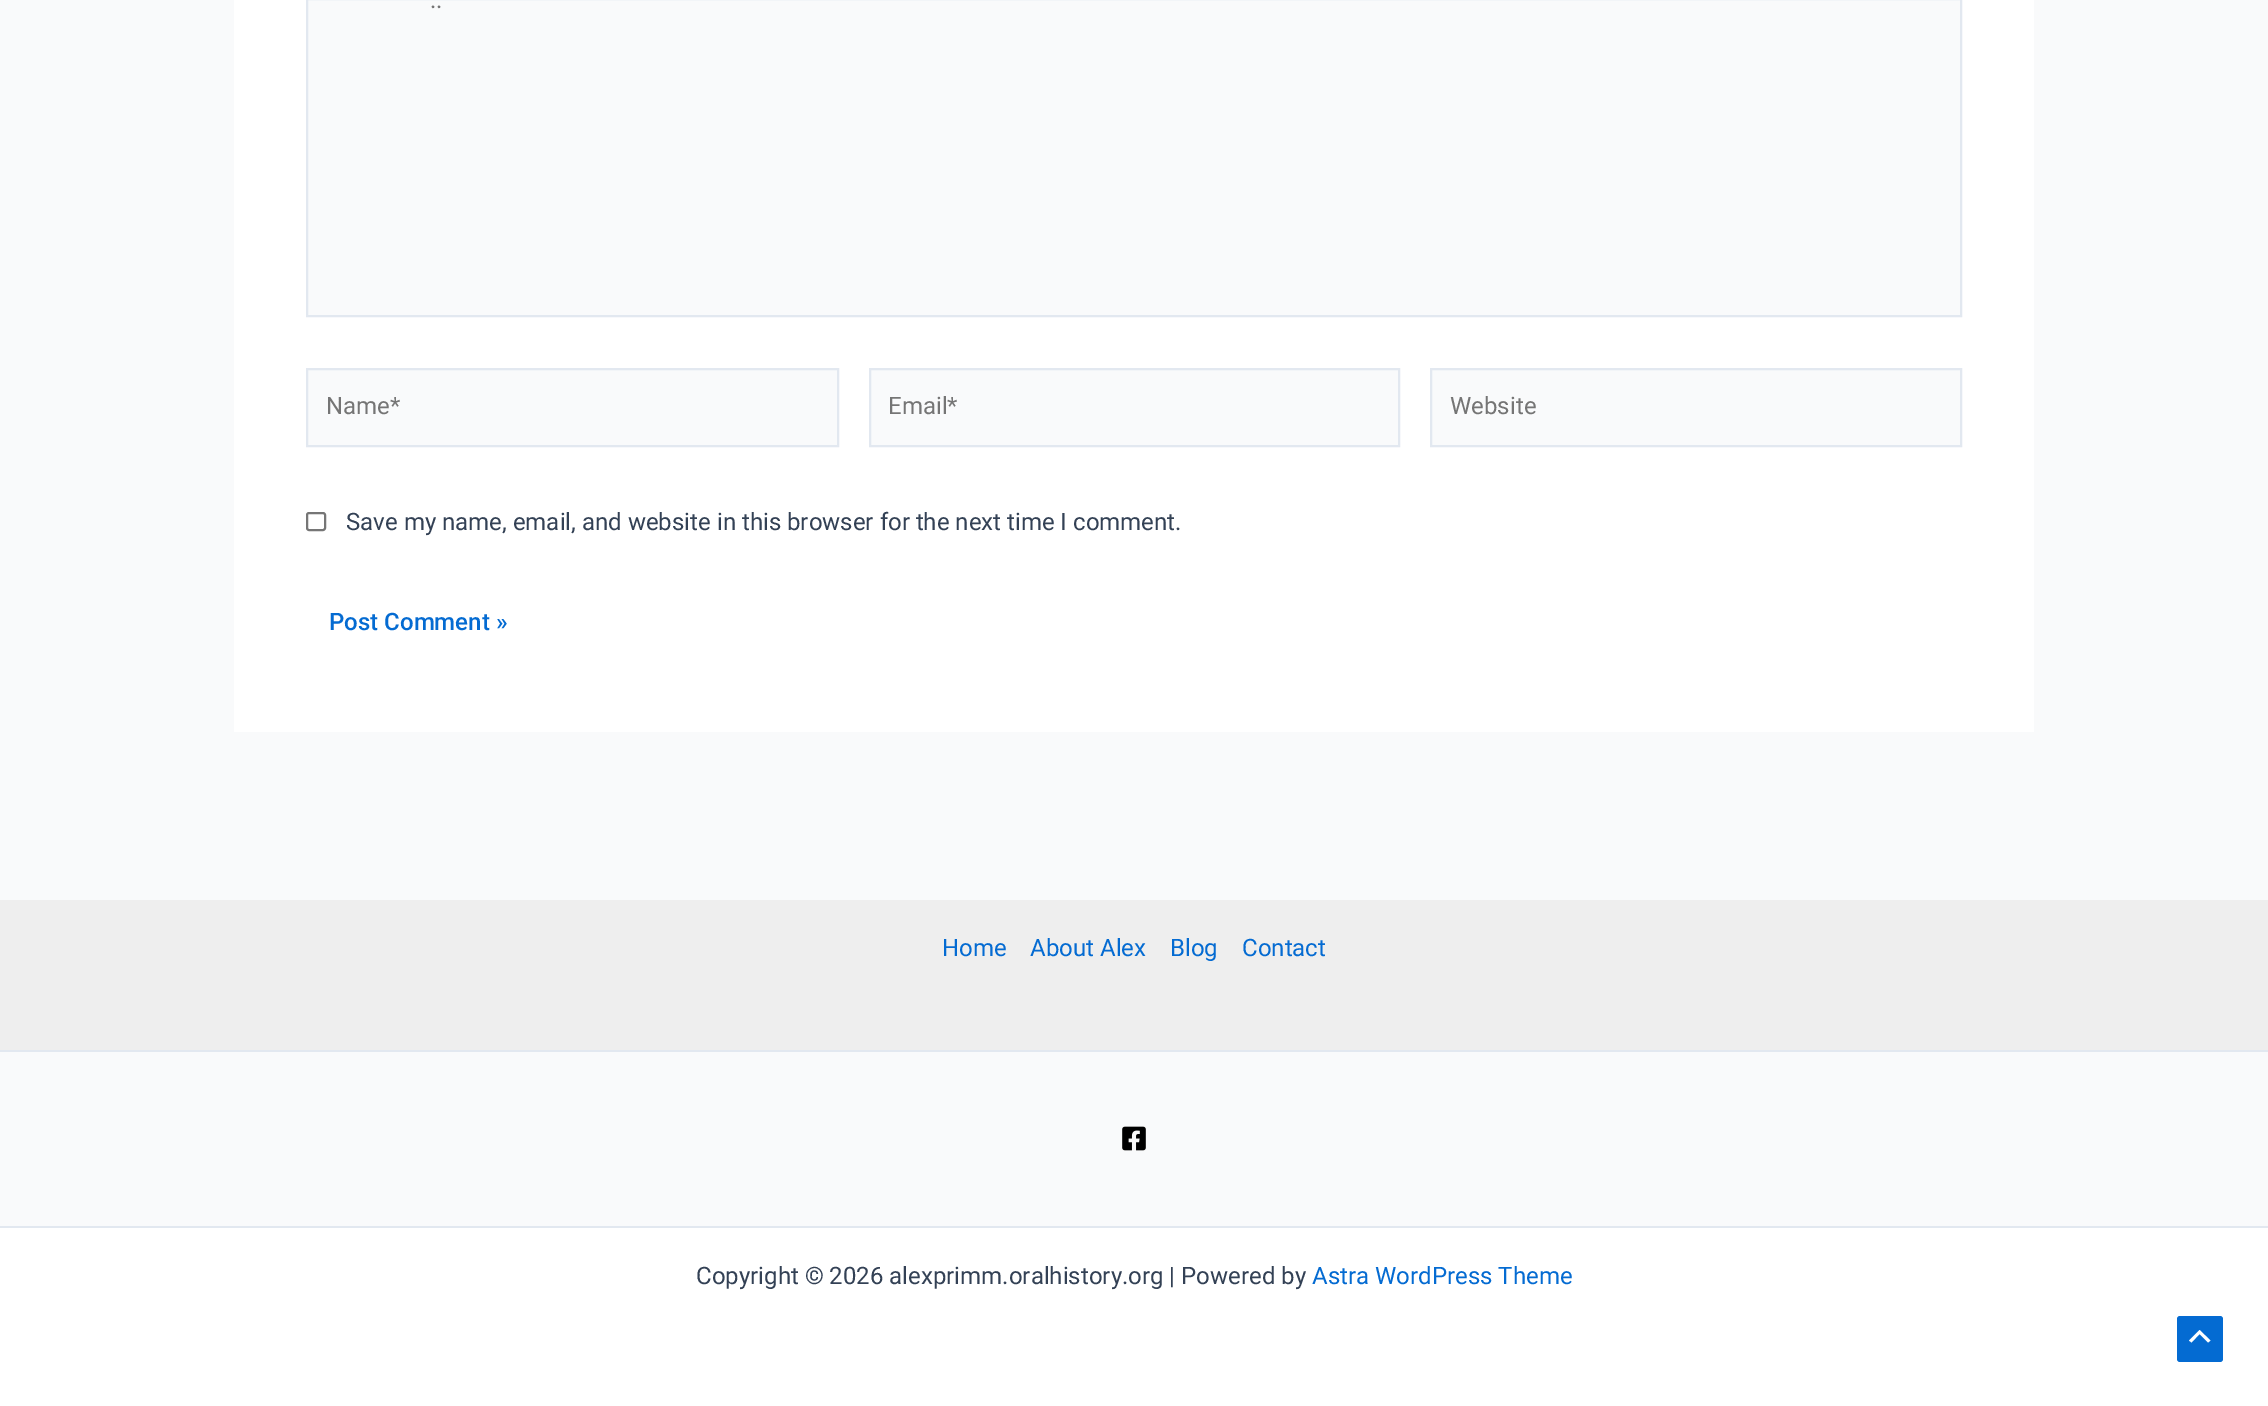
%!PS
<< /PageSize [2268 1406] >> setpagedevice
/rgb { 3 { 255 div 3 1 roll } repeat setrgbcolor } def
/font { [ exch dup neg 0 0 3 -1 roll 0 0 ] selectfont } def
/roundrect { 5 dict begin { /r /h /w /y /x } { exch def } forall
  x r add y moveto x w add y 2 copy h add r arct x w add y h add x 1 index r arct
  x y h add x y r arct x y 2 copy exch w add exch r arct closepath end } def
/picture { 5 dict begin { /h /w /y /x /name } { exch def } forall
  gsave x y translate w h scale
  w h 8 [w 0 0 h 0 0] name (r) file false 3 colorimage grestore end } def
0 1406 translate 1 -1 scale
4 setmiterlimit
249 250 251 rgb
0 0 2268 1406 rectfill
255 255 255 rgb
234 0 1800 732 rectfill
249 250 251 rgb
307 -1 moveto 1961 -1 lineto 1961 316 lineto 307 316 lineto closepath gsave fill grestore
226 232 240 rgb
2 setlinewidth
stroke
249 250 251 rgb
307 369 moveto 838 369 lineto 838 446 lineto 307 446 lineto closepath gsave fill grestore
226 232 240 rgb
stroke
249 250 251 rgb
870 369 moveto 1399 369 lineto 1399 446 lineto 870 446 lineto closepath gsave fill grestore
226 232 240 rgb
stroke
249 250 251 rgb
1431 369 moveto 1961 369 lineto 1961 446 lineto 1431 446 lineto closepath gsave fill grestore
226 232 240 rgb
stroke
118 118 118 rgb
307 513 18 17 2 roundrect stroke
238 238 238 rgb
0 900 2268 150 rectfill
226 232 240 rgb
0 1050 2268 2 rectfill
(img/1.rgb) 1122 1126 24 25 picture
255 255 255 rgb
0 1228 2268 178 rectfill
226 232 240 rgb
0 1226 2268 2 rectfill
4 107 210 rgb
2177 1316 46 46 3 roundrect fill
255 255 255 rgb
2210.5 1340.5 moveto 2199.5 1330 lineto 2189 1340.5 lineto 2191.5 1342.5 lineto 2199.5 1334 lineto 2208 1342.5 lineto closepath fill
/Roboto-Regular 24 font
117 117 117 rgb
[
  [(..) 430 8]
  [(Name*) 326 414]
  [(Email*) 888 414]
  [(Website) 1450 414]
] { aload pop moveto show } forall
51 65 85 rgb
346 530 moveto (Save my name, email, and website in this browser for the next time I comment.) show
/Roboto-Medium 24 font
4 107 210 rgb
329 630 moveto (Post Comment ») show
/Roboto-Regular 24 font
[
  [(Home) 942 956]
  [(About Alex) 1030 956]
  [(Blog) 1170 956]
  [(Contact) 1242 956]
] { aload pop moveto show } forall
51 65 85 rgb
696 1284 moveto (Copyright © 2026 alexprimm.oralhistory.org | Powered by) show
4 107 210 rgb
1312 1284 moveto (Astra WordPress Theme) show
showpage
